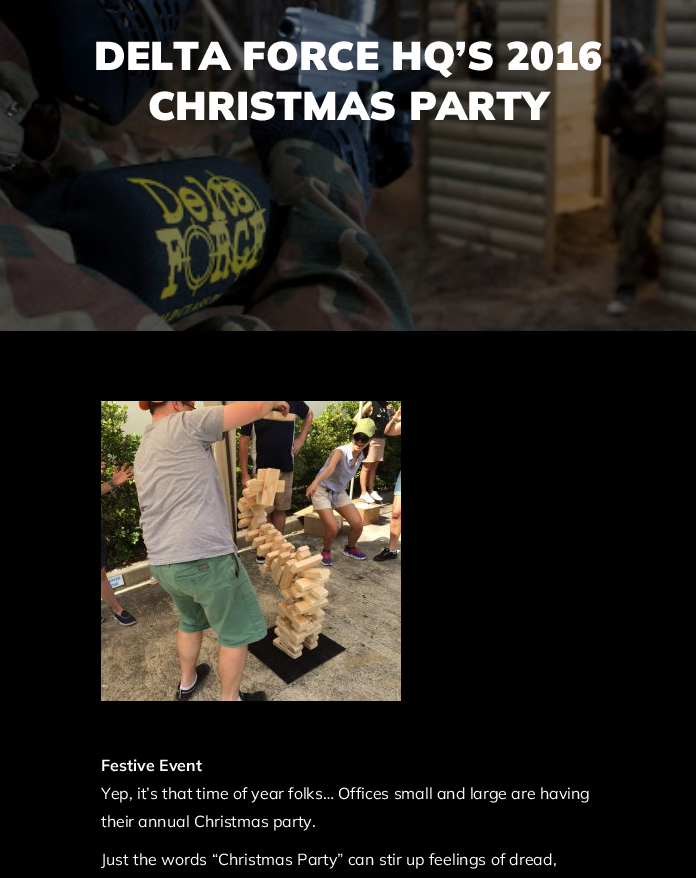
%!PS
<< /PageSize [696 878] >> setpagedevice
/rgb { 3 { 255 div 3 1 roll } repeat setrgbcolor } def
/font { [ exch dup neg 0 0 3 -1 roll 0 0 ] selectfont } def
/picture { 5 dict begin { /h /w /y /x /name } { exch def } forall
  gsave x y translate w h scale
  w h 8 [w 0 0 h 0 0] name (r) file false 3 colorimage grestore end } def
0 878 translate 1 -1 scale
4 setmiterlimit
0 0 0 rgb
0 0 696 878 rectfill
(img/1.rgb) 0 0 696 331 picture
(img/2.rgb) 101 401 300 300 picture
/Mulish-Black 40 font
255 255 255 rgb
94 70 moveto (DELTA FORCE HQ’S 2016) show
148 120 moveto (CHRISTMAS PARTY) show
/Mulish-Bold 16 font
101 771 moveto (Festive Event) show
/Mulish-Regular 16 font
[
  [(Yep, it’s that time of year folks… Offices small and large are having) 101 799]
  [(their annual Christmas party.) 101 827]
  [(Just the words “Christmas Party” can stir up feelings of dread,) 101 865]
] { aload pop moveto show } forall
showpage
